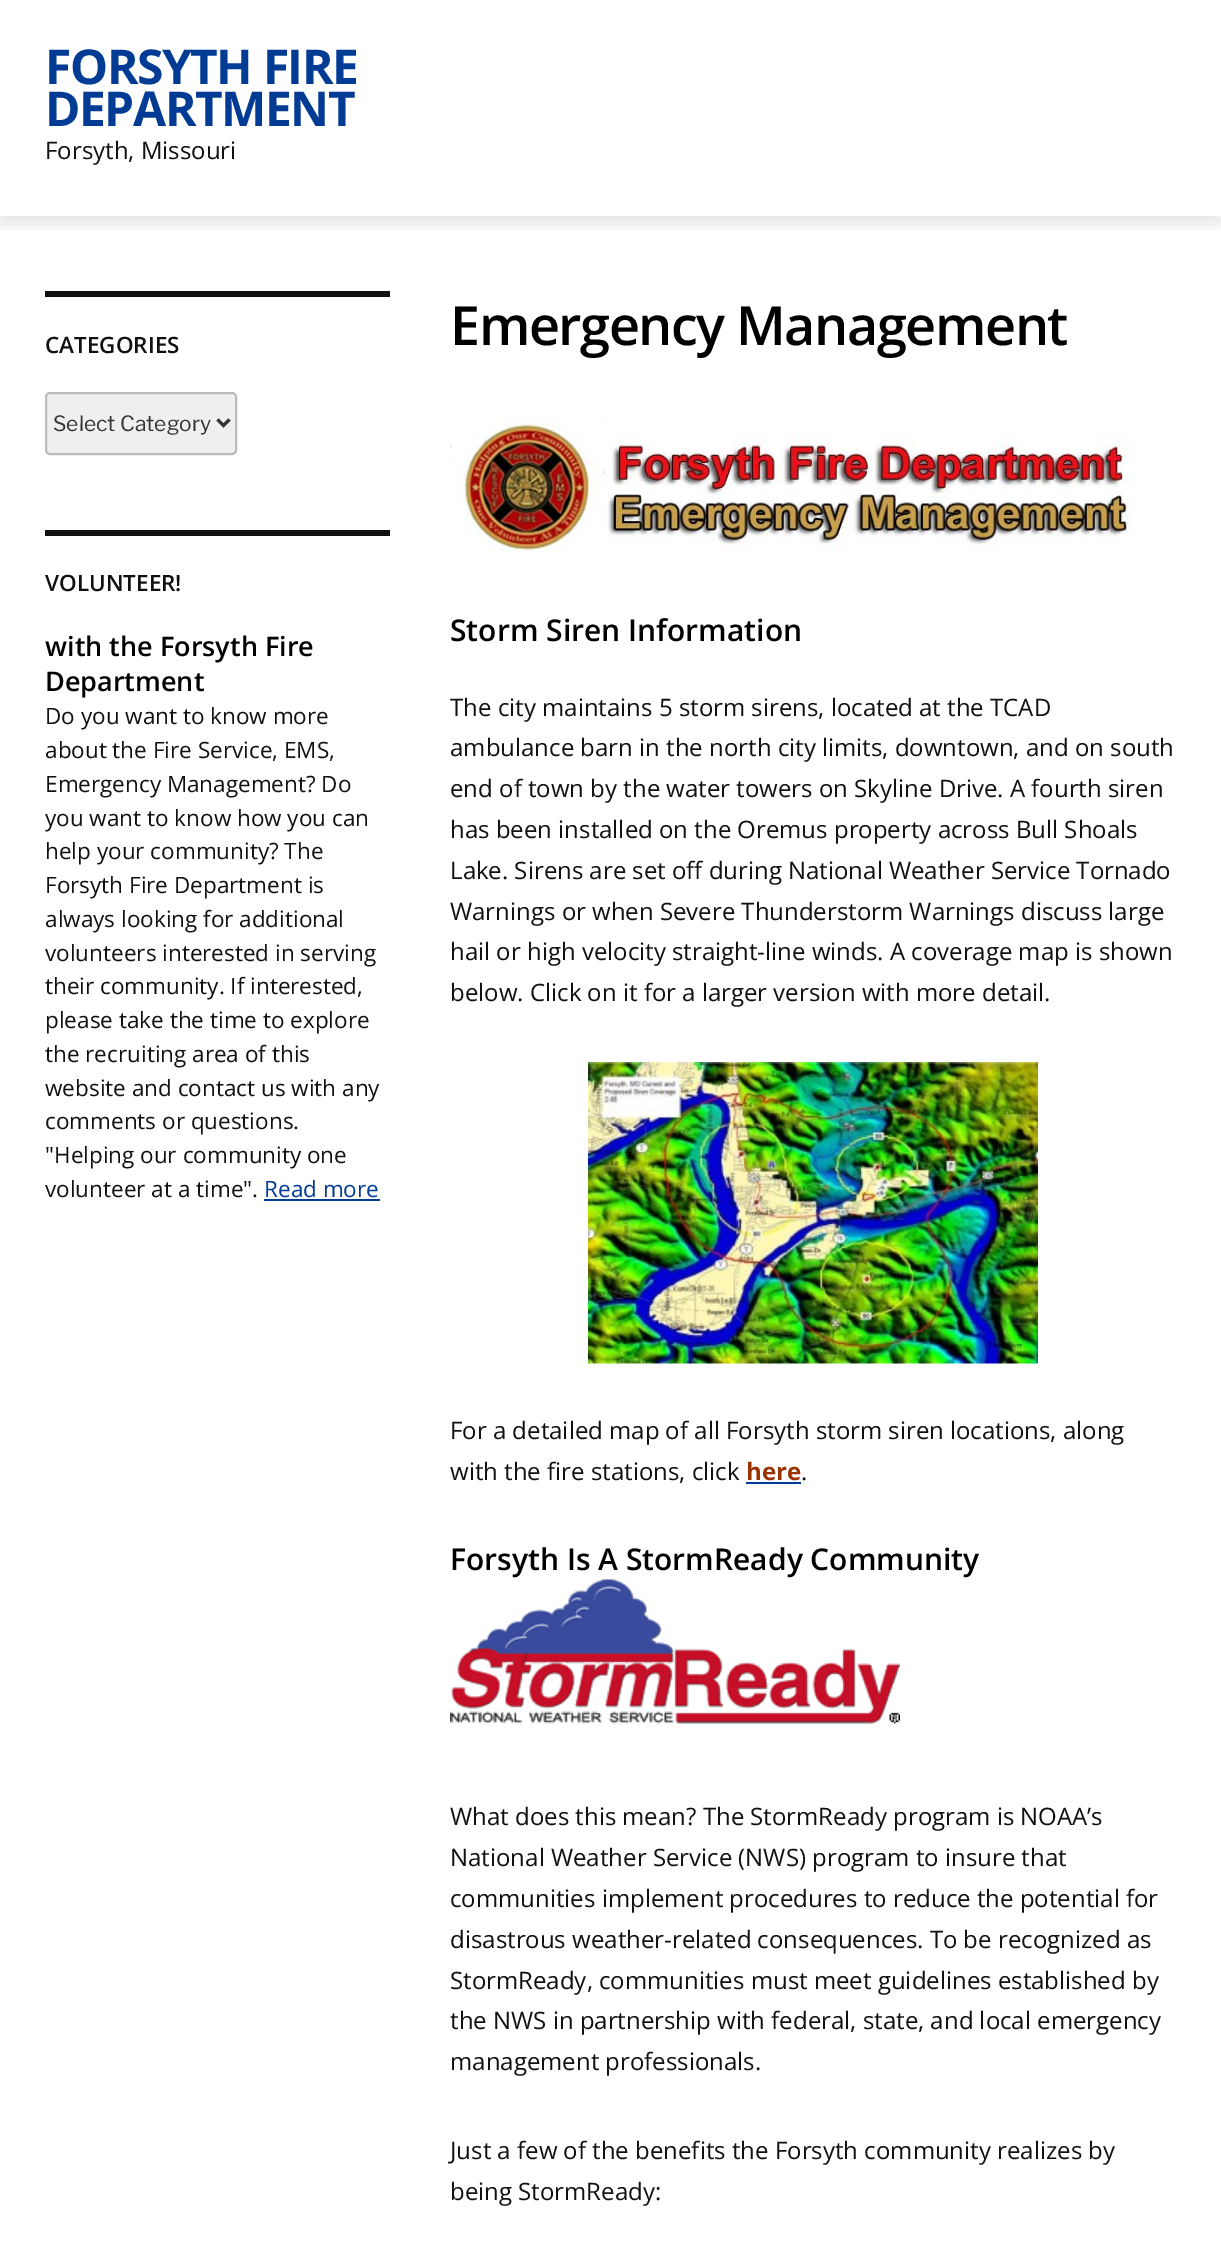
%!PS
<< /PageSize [1221 2246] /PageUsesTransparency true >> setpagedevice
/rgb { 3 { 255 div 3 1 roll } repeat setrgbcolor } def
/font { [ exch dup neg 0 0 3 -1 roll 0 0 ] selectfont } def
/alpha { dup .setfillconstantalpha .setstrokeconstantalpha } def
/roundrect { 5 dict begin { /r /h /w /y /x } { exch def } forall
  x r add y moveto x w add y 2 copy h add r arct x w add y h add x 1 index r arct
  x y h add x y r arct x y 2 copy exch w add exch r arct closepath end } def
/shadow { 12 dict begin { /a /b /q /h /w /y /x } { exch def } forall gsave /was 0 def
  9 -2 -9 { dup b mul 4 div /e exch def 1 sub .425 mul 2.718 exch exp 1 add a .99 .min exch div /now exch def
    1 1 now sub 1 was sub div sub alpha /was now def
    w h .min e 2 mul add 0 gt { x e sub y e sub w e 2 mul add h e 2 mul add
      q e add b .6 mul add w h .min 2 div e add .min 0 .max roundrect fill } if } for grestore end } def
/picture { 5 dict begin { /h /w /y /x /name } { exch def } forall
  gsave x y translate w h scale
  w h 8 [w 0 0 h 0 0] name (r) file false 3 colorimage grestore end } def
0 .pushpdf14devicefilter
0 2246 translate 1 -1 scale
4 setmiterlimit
255 255 255 rgb
0 0 1221 2246 rectfill
gsave
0 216 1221 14 rectclip
0 0 0 rgb
0 8 1221 216 0 7.5 0.1 shadow
grestore
17 17 17 rgb
45 291 345 6 rectfill
239 239 239 rgb
46 393 190 61 4 roundrect gsave fill grestore
187 187 187 rgb
2 setlinewidth
stroke
51 51 51 rgb
3 setlinewidth
217.5 419.5 moveto 223.5 425.5 lineto 229.5 419.5 lineto stroke
17 17 17 rgb
45 530 345 6 rectfill
1 59 147 rgb
264 1199 116 2 rectfill
(img/1.rgb) 450 418 681 135 picture
(img/2.rgb) 588 1062 450 302 picture
746 1482 55 2 rectfill
(img/3.rgb) 450 1579 450 145 picture
/OpenSans-Bold 48 font
45 84 moveto -1.5 0 (FORSYTH FIRE) ashow
45 126 moveto -1.5 0 (DEPARTMENT) ashow
/OpenSans-Regular 24 font
17 17 17 rgb
45 159 moveto (Forsyth, Missouri) show
/OpenSans-SemiBold 22.5 font
45 353 moveto (CATEGORIES) show
/LibreFranklin-Regular 21 font
51 51 51 rgb
53 431 moveto (Select Category) show
/OpenSans-SemiBold 22.5 font
17 17 17 rgb
45 591 moveto (VOLUNTEER!) show
/OpenSans-SemiBold 27 font
0 0 0 rgb
45 656 moveto (with the Forsyth Fire) show
45 691 moveto (Department) show
/OpenSans-Regular 22.5 font
17 17 17 rgb
[
  [(Do you want to know more) 45 724]
  [(about the Fire Service, EMS,) 45 758]
  [(Emergency Management? Do) 45 792]
  [(you want to know how you can) 45 826]
  [(help your community? The) 45 859]
  [(Forsyth Fire Department is) 45 893]
  [(always looking for additional) 45 927]
  [(volunteers interested in serving) 45 961]
  [(their community. If interested,) 45 994]
  [(please take the time to explore) 45 1028]
  [(the recruiting area of this) 45 1062]
  [(website and contact us with any) 45 1096]
  [(comments or questions.) 45 1129]
  [("Helping our community one) 45 1163]
  [(volunteer at a time".) 45 1197]
] { aload pop moveto show } forall
1 59 147 rgb
264 1197 moveto (Read more) show
/OpenSans-SemiBold 54 font
0 0 0 rgb
450 345 moveto -1.5 0 (Emergency Management) ashow
/OpenSans-SemiBold 30 font
450 641 moveto (Storm Siren Information) show
/OpenSans-Regular 24 font
17 17 17 rgb
[
  [(The city maintains 5 storm sirens, located at the TCAD) 450 716]
  [(ambulance barn in the north city limits, downtown, and on south) 450 756]
  [(end of town by the water towers on Skyline Drive. A fourth siren) 450 797]
  [(has been installed on the Oremus property across Bull Shoals) 450 838]
  [(Lake. Sirens are set off during National Weather Service Tornado) 450 879]
  [(Warnings or when Severe Thunderstorm Warnings discuss large) 450 920]
  [(hail or high velocity straight-line winds. A coverage map is shown) 450 960]
  [(below. Click on it for a larger version with more detail.) 450 1001]
  [(For a detailed map of all Forsyth storm siren locations, along) 450 1439]
  [(with the fire stations, click) 450 1480]
] { aload pop moveto show } forall
/OpenSans-Bold 24 font
153 51 0 rgb
746 1480 moveto (here) show
/OpenSans-Regular 24 font
17 17 17 rgb
801 1480 moveto (.) show
/OpenSans-SemiBold 30 font
0 0 0 rgb
450 1570 moveto (Forsyth Is A StormReady Community) show
/OpenSans-Regular 24 font
17 17 17 rgb
[
  [(What does this mean? The StormReady program is NOAA’s) 450 1825]
  [(National Weather Service \(NWS\) program to insure that) 450 1866]
  [(communities implement procedures to reduce the potential for) 450 1907]
  [(disastrous weather-related consequences. To be recognized as) 450 1948]
  [(StormReady, communities must meet guidelines established by) 450 1989]
  [(the NWS in partnership with federal, state, and local emergency) 450 2029]
  [(management professionals.) 450 2070]
  [(Just a few of the benefits the Forsyth community realizes by) 450 2159]
  [(being StormReady:) 450 2200]
] { aload pop moveto show } forall
.poppdf14devicefilter showpage
